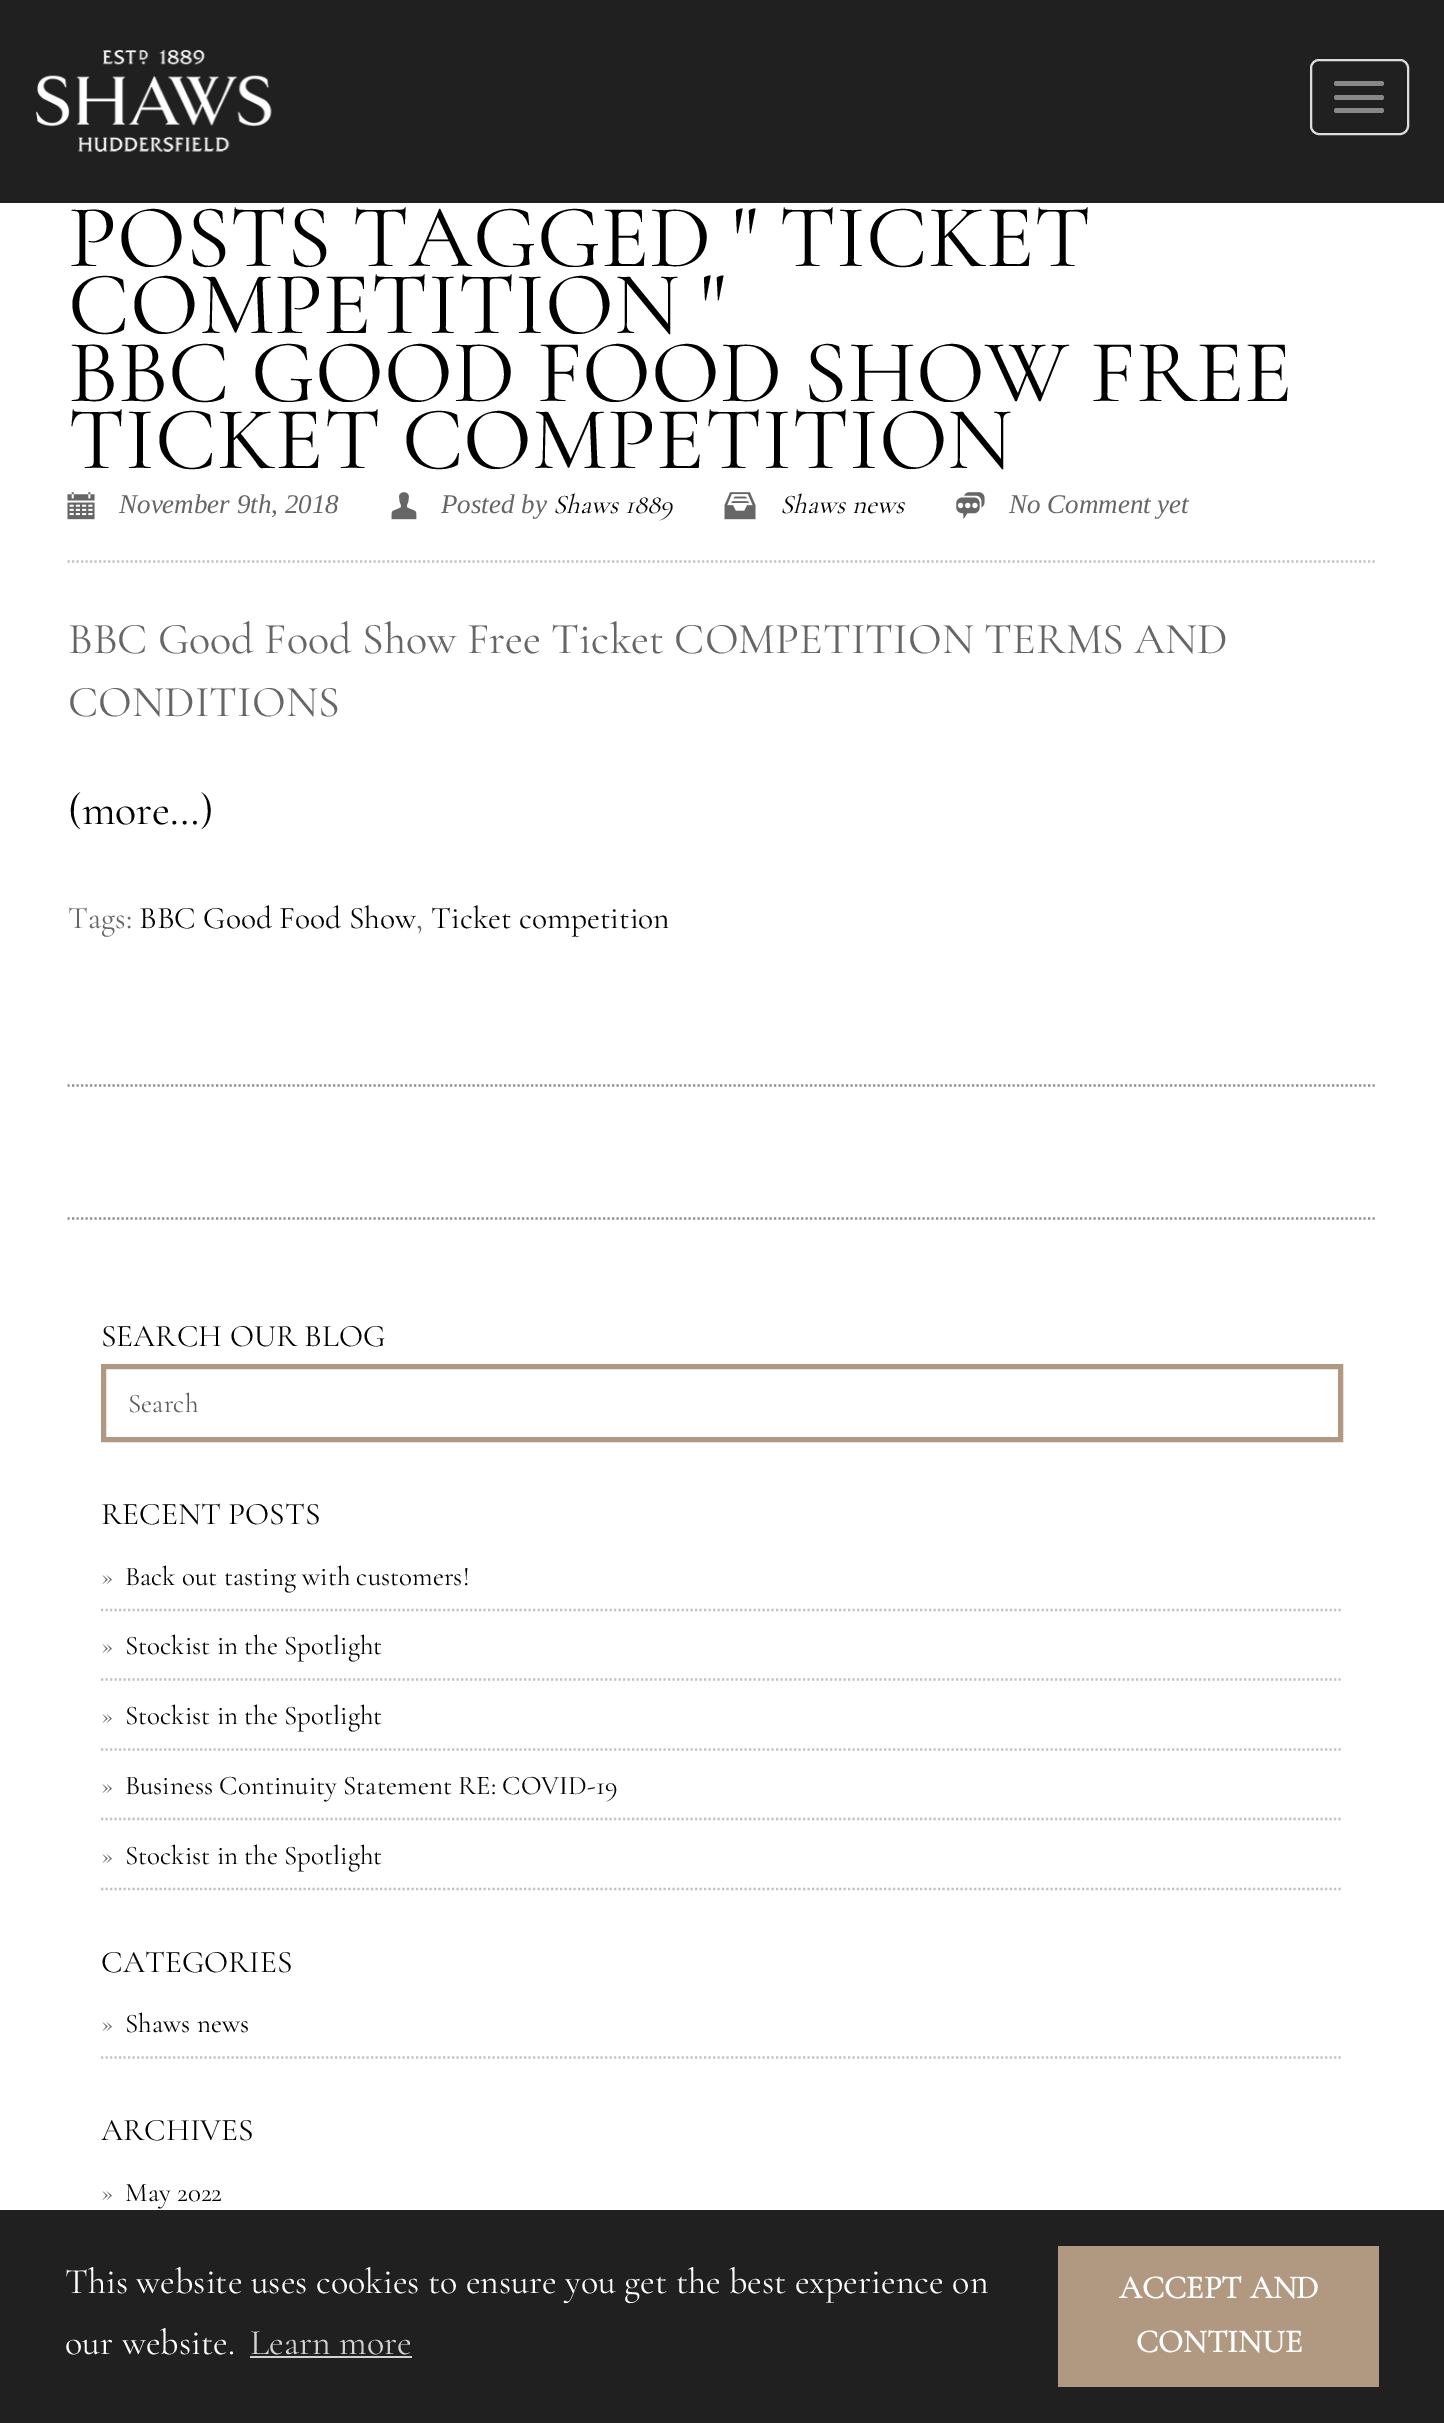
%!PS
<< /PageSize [1444 2423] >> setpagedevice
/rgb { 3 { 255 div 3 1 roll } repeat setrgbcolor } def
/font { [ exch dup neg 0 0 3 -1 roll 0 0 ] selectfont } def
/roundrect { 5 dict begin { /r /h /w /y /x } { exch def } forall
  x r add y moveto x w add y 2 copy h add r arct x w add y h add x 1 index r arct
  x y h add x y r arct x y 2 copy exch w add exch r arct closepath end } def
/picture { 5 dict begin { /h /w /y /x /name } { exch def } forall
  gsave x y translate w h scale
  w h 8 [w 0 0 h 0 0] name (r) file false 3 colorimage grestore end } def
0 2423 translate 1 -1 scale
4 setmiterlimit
255 255 255 rgb
0 0 1444 2423 rectfill
32 32 32 rgb
0 0 1444 203 rectfill
(img/1.rgb) 36 49 236 103 picture
221 221 221 rgb
2 setlinewidth
1311 60 97 74 8 roundrect stroke
136 136 136 rgb
1334 81 50 5 2.5 roundrect fill
1334 95 50 5 2.5 roundrect fill
1334 108 50 5 2.5 roundrect fill
(img/2.rgb) 67 492 28 28 picture
(img/3.rgb) 391 492 26 28 picture
(img/4.rgb) 724 492 32 28 picture
(img/5.rgb) 956 492 29 27 picture
194 194 194 rgb
2.2 setlinewidth
[2.25 2.25] 0 setdash
67.5 561.5 moveto 1377 561.5 lineto stroke
147 142 142 rgb
67.5 1085.5 moveto 1377 1085.5 lineto stroke
67.5 1218.5 moveto 1377 1218.5 lineto stroke
177 153 129 rgb
5 setlinewidth
[] 0 setdash
103.5 1366.5 1237 73 rectstroke
194 194 194 rgb
2.2 setlinewidth
[2.25 2.25] 0 setdash
101 1610 moveto 1343 1610 lineto stroke
101 1679.5 moveto 1343 1679.5 lineto stroke
101 1749.5 moveto 1343 1749.5 lineto stroke
101 1819 moveto 1343 1819 lineto stroke
101 1889 moveto 1343 1889 lineto stroke
101 2057.5 moveto 1343 2057.5 lineto stroke
[
  [0 2210 1444 213 32 32 32]
  [250 2356 162 2 210 210 210]
  [1058 2246 321 141 177 153 129]
] { aload pop rgb rectfill } forall
/CormorantGaramond-Light 90 font
0 0 0 rgb
[
  [(POSTS TAGGED " TICKET) 68 266]
  [(COMPETITION ") 68 333]
  [(BBC GOOD FOOD SHOW FREE) 68 401]
  [(TICKET COMPETITION) 68 468]
] { aload pop moveto show } forall
/LiberationSerif-Italic 27 font
102 102 102 rgb
119 513 moveto (November 9th, 2018) show
441 513 moveto (Posted by) show
/CormorantGaramond-LightItalic 27 font
0 0 0 rgb
553 513 moveto (Shaws 1889) show
780 513 moveto (Shaws news) show
/LiberationSerif-Italic 27 font
102 102 102 rgb
1009 513 moveto (No Comment yet) show
/CormorantGaramond-Light 44.1 font
68 653 moveto (BBC Good Food Show Free Ticket COMPETITION TERMS AND) show
68 716 moveto (CONDITIONS) show
0 0 0 rgb
68 824 moveto (\(more…\)) show
/CormorantGaramond-Light 31.5 font
102 102 102 rgb
68 928 moveto (Tags:) show
0 0 0 rgb
139 928 moveto (BBC Good Food Show) show
102 102 102 rgb
416 928 moveto (,) show
0 0 0 rgb
431 928 moveto (Ticket competition) show
101 1346 moveto (SEARCH OUR BLOG) show
/CormorantGaramond-Light 27 font
92 92 92 rgb
128 1412 moveto (Search) show
/CormorantGaramond-Light 31.5 font
0 0 0 rgb
101 1524 moveto (RECENT POSTS) show
/CormorantGaramond-Light 27 font
102 102 102 rgb
101 1585 moveto (») show
0 0 0 rgb
125 1585 moveto (Back out tasting with customers!) show
102 102 102 rgb
101 1654 moveto (») show
0 0 0 rgb
125 1654 moveto (Stockist in the Spotlight) show
102 102 102 rgb
101 1724 moveto (») show
0 0 0 rgb
125 1724 moveto (Stockist in the Spotlight) show
102 102 102 rgb
101 1794 moveto (») show
0 0 0 rgb
125 1794 moveto (Business Continuity Statement RE: COVID-19) show
102 102 102 rgb
101 1864 moveto (») show
0 0 0 rgb
125 1864 moveto (Stockist in the Spotlight) show
/CormorantGaramond-Light 31.5 font
101 1972 moveto (CATEGORIES) show
/CormorantGaramond-Light 27 font
102 102 102 rgb
101 2032 moveto (») show
0 0 0 rgb
125 2032 moveto (Shaws news) show
/CormorantGaramond-Light 31.5 font
101 2140 moveto (ARCHIVES) show
/CormorantGaramond-Light 27 font
102 102 102 rgb
101 2201 moveto (») show
0 0 0 rgb
125 2201 moveto (May 2022) show
/CormorantGaramond-Light 36 font
255 255 255 rgb
65 2293 moveto (This website uses cookies to ensure you get the best experience on) show
65 2354 moveto (our website.) show
210 210 210 rgb
250 2354 moveto (Learn more) show
/CormorantGaramond-Bold 32.5 font
255 255 255 rgb
1119 2298 moveto (ACCEPT AND) show
1136 2352 moveto (CONTINUE) show
showpage
